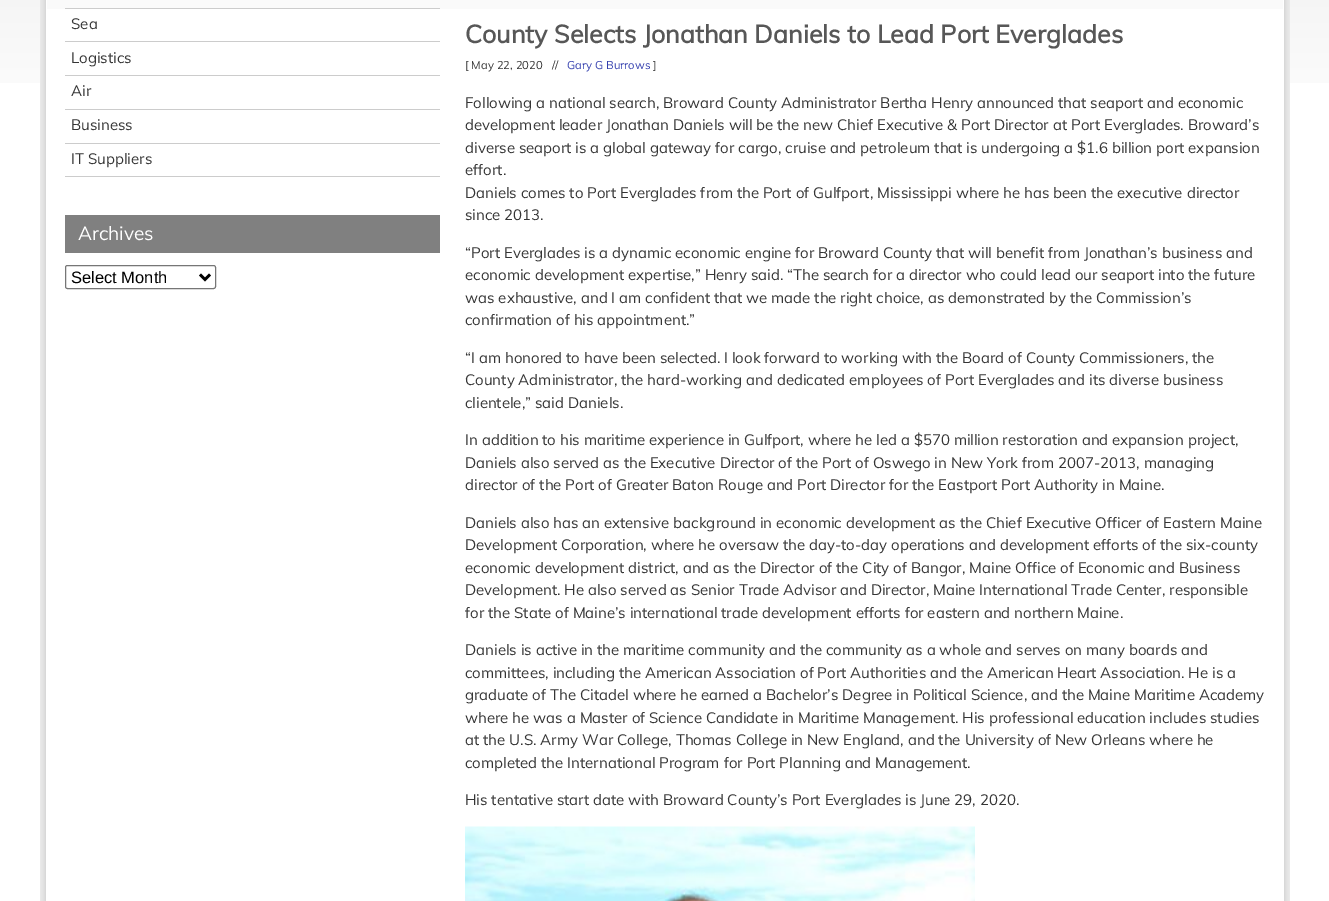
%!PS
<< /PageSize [1329 901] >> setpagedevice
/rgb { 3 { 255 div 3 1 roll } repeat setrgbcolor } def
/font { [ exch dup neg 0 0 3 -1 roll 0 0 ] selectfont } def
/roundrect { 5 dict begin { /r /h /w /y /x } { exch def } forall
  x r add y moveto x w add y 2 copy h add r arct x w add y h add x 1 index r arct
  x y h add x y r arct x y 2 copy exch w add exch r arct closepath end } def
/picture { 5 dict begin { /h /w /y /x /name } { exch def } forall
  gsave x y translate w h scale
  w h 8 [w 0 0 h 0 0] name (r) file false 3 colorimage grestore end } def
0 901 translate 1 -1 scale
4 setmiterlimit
255 255 255 rgb
0 0 1329 901 rectfill
(img/1.rgb) 0 0 1329 83 picture
(img/2.rgb) 40 0 1250 901 picture
[
  [46 0 1238 901 255 255 255]
  [47 0 1236 9 250 250 250]
  [65 8 375 1 204 204 204]
  [65 41 375 1 204 204 204]
  [65 75 375 1 204 204 204]
  [65 109 375 1 204 204 204]
  [65 143 375 1 204 204 204]
  [65 176 375 1 204 204 204]
  [65 215 375 38 128 128 128]
] { aload pop rgb rectfill } forall
118 118 118 rgb
65.5 265.5 150 23 2 roundrect stroke
0 0 0 rgb
2.5 setlinewidth
200 274.5 moveto 205 279.5 lineto 210 274.5 lineto stroke
(img/3.rgb) 465 826 510 75 picture
/Muli-Regular 15 font
53 53 53 rgb
[
  [(Sea) 71 29]
  [(Logistics) 71 63]
  [(Air) 71 96]
  [(Business) 71 130]
  [(IT Suppliers) 71 164]
] { aload pop moveto show } forall
/Muli-Regular 19 font
255 255 255 rgb
78 240 moveto (Archives) show
/LiberationSans-Regular 16.5 font
0 0 0 rgb
71 283 moveto (Select Month) show
/Muli-Bold 25 font
87 87 87 rgb
465 43 moveto (County Selects Jonathan Daniels to Lead Port Everglades) show
/Muli-Regular 11.25 font
53 53 53 rgb
465 69 moveto ([ May 22, 2020   //) show
50 62 174 rgb
567 69 moveto (Gary G Burrows) show
53 53 53 rgb
653 69 moveto (]) show
/Muli-Regular 15 font
[
  [(Following a national search, Broward County Administrator Bertha Henry announced that seaport and economic) 465 108]
  [(development leader Jonathan Daniels will be the new Chief Executive & Port Director at Port Everglades. Broward’s) 465 130]
  [(diverse seaport is a global gateway for cargo, cruise and petroleum that is undergoing a $1.6 billion port expansion) 465 153]
  [(effort.) 465 175]
  [(Daniels comes to Port Everglades from the Port of Gulfport, Mississippi where he has been the executive director) 465 198]
  [(since 2013.) 465 220]
  [(“Port Everglades is a dynamic economic engine for Broward County that will benefit from Jonathan’s business and) 465 258]
  [(economic development expertise,” Henry said. “The search for a director who could lead our seaport into the future) 465 280]
  [(was exhaustive, and I am confident that we made the right choice, as demonstrated by the Commission’s) 465 303]
  [(confirmation of his appointment.”) 465 325]
  [(“I am honored to have been selected. I look forward to working with the Board of County Commissioners, the) 465 363]
  [(County Administrator, the hard-working and dedicated employees of Port Everglades and its diverse business) 465 385]
  [(clientele,” said Daniels.) 465 408]
  [(In addition to his maritime experience in Gulfport, where he led a $570 million restoration and expansion project,) 465 445]
  [(Daniels also served as the Executive Director of the Port of Oswego in New York from 2007-2013, managing) 465 468]
  [(director of the Port of Greater Baton Rouge and Port Director for the Eastport Port Authority in Maine.) 465 490]
  [(Daniels also has an extensive background in economic development as the Chief Executive Officer of Eastern Maine) 465 528]
  [(Development Corporation, where he oversaw the day-to-day operations and development efforts of the six-county) 465 550]
  [(economic development district, and as the Director of the City of Bangor, Maine Office of Economic and Business) 465 573]
  [(Development. He also served as Senior Trade Advisor and Director, Maine International Trade Center, responsible) 465 595]
  [(for the State of Maine’s international trade development efforts for eastern and northern Maine.) 465 618]
  [(Daniels is active in the maritime community and the community as a whole and serves on many boards and) 465 655]
  [(committees, including the American Association of Port Authorities and the American Heart Association. He is a) 465 678]
  [(graduate of The Citadel where he earned a Bachelor’s Degree in Political Science, and the Maine Maritime Academy) 465 700]
  [(where he was a Master of Science Candidate in Maritime Management. His professional education includes studies) 465 723]
  [(at the U.S. Army War College, Thomas College in New England, and the University of New Orleans where he) 465 745]
  [(completed the International Program for Port Planning and Management.) 465 768]
  [(His tentative start date with Broward County’s Port Everglades is June 29, 2020.) 465 805]
] { aload pop moveto show } forall
showpage
